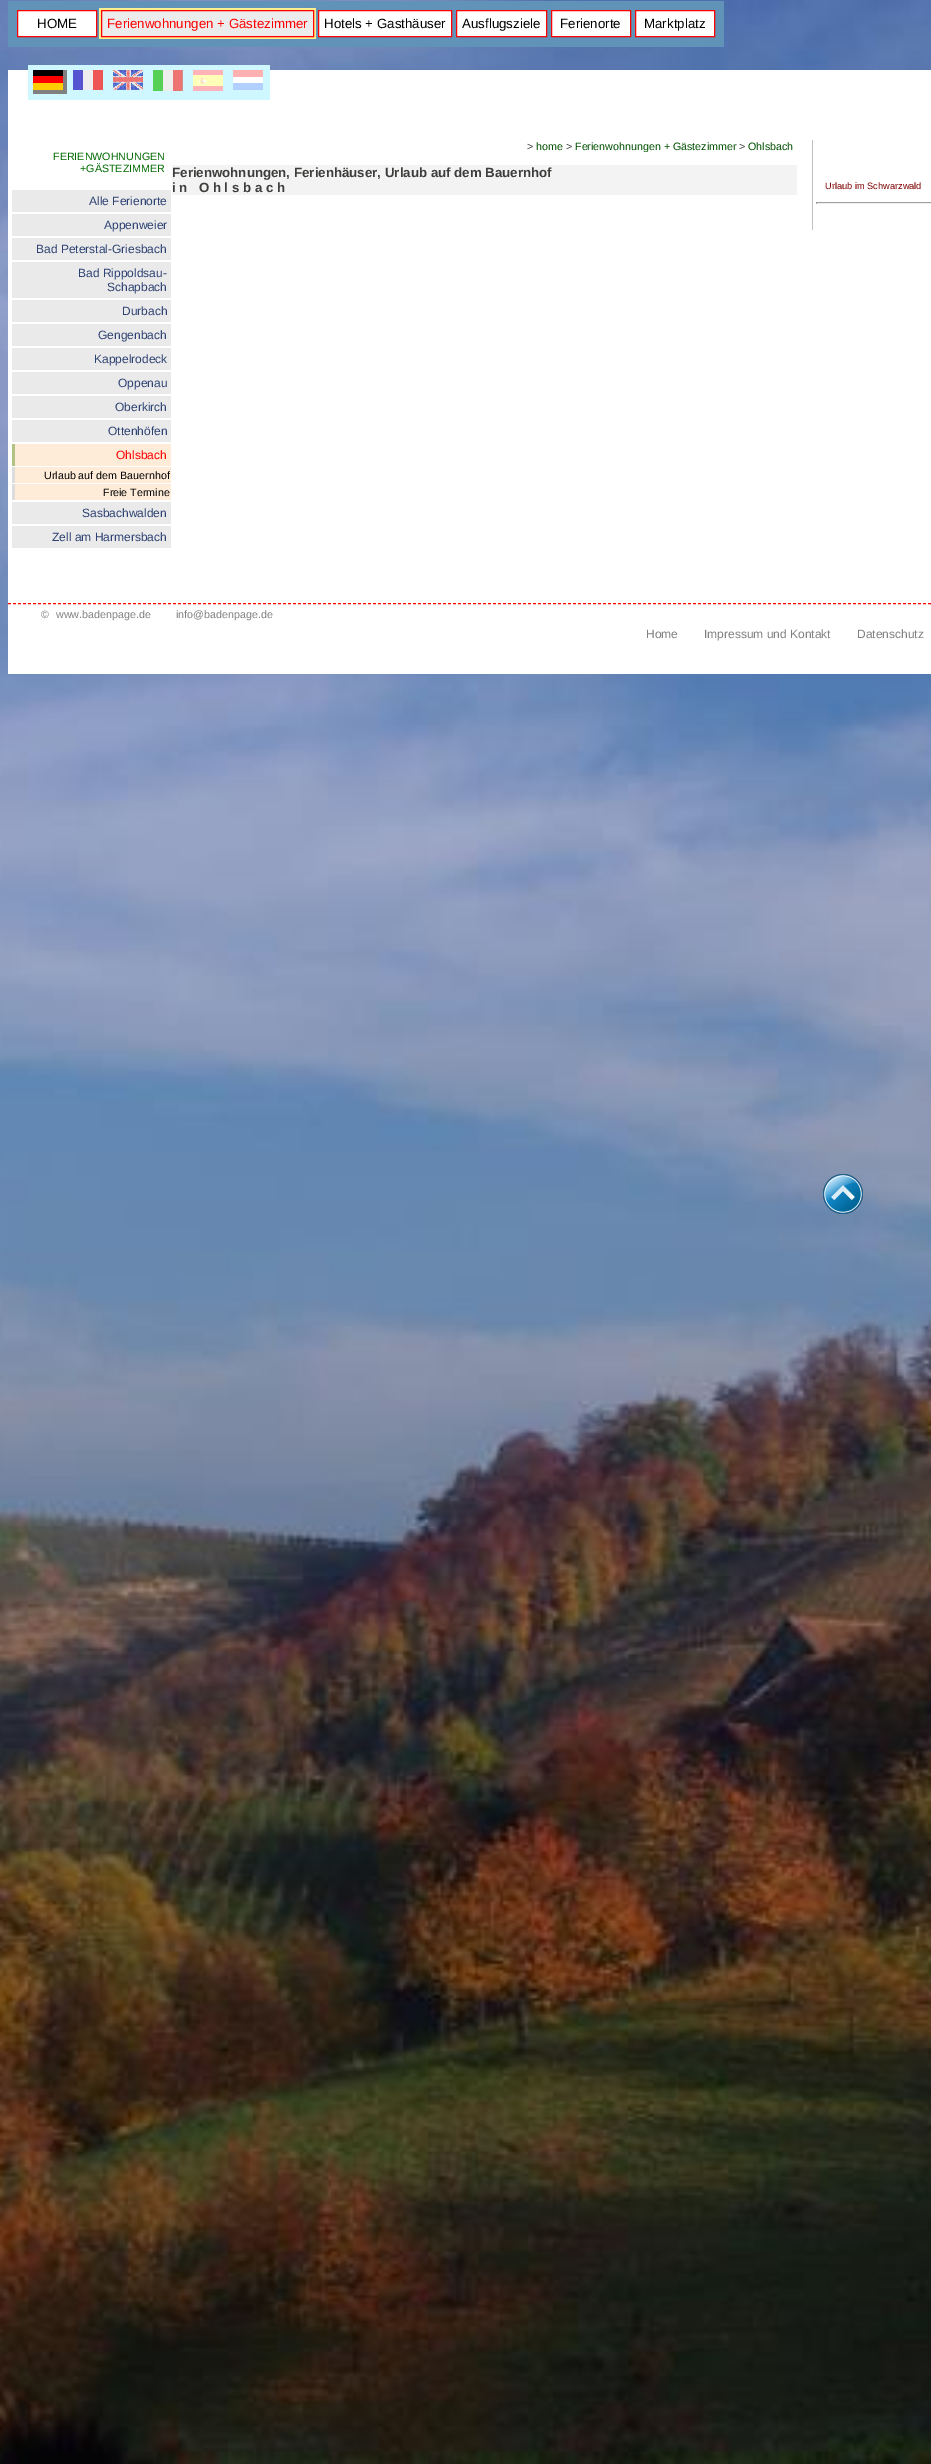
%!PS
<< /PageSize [931 2464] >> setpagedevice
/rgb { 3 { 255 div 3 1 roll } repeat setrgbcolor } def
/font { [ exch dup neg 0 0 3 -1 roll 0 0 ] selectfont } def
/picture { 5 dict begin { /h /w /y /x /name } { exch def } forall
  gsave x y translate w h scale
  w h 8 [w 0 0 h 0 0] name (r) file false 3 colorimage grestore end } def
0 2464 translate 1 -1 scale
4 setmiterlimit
255 255 255 rgb
0 0 931 2464 rectfill
(img/1.rgb) 0 0 931 2464 picture
8 70 923 604 rectfill
97 146 183 rgb
8 1 716 46 rectfill
255 255 255 rgb
17.5 10.5 moveto 96.5 10.5 lineto 96.5 36.5 lineto 17.5 36.5 lineto closepath gsave fill grestore
255 0 0 rgb
stroke
253 238 142 rgb
99 8 217 31 rectfill
236 236 236 rgb
101.5 10.5 moveto 313.5 10.5 lineto 313.5 36.5 lineto 101.5 36.5 lineto closepath gsave fill grestore
255 0 0 rgb
stroke
255 255 255 rgb
318.5 10.5 moveto 451.5 10.5 lineto 451.5 36.5 lineto 318.5 36.5 lineto closepath gsave fill grestore
255 0 0 rgb
stroke
255 255 255 rgb
456.5 10.5 moveto 546.5 10.5 lineto 546.5 36.5 lineto 456.5 36.5 lineto closepath gsave fill grestore
255 0 0 rgb
stroke
255 255 255 rgb
551.5 10.5 moveto 630.5 10.5 lineto 630.5 36.5 lineto 551.5 36.5 lineto closepath gsave fill grestore
255 0 0 rgb
stroke
255 255 255 rgb
635.5 10.5 moveto 714.5 10.5 lineto 714.5 36.5 lineto 635.5 36.5 lineto closepath gsave fill grestore
255 0 0 rgb
stroke
[
  [12 190 159 22 234 234 234]
  [12 214 159 22 234 234 234]
  [12 238 159 22 234 234 234]
  [12 262 159 36 234 234 234]
  [12 300 159 22 234 234 234]
  [12 324 159 22 234 234 234]
  [12 348 159 22 234 234 234]
  [12 372 159 22 234 234 234]
  [12 396 159 22 234 234 234]
  [12 420 159 22 234 234 234]
  [15 444 156 22 254 235 216]
  [12 444 3 22 178 194 132]
  [15 467 156 16 254 235 216]
  [12 467 3 16 221 221 221]
  [15 484 156 16 254 235 216]
  [12 484 3 16 221 221 221]
  [12 502 159 22 234 234 234]
  [12 526 159 22 234 234 234]
  [812 140 1 90 192 192 192]
  [172 165 625 30 243 243 243]
  [816 202 115 1 159 159 159]
  [816 203 115 1 238 238 238]
  [816 202 1 2 159 159 159]
] { aload pop rgb rectfill } forall
255 0 0 rgb
[3 2] 0 setdash
8 603.5 moveto 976 603.5 lineto stroke
206 247 255 rgb
28 65 242 35 rectfill
(img/2.rgb) 33 70 34 24 picture
(img/3.rgb) 73 70 30 20 picture
(img/4.rgb) 113 70 30 20 picture
(img/5.rgb) 153 70 30 21 picture
(img/6.rgb) 193 70 30 21 picture
(img/7.rgb) 233 70 30 20 picture
(img/8.rgb) 823 1174 40 40 picture
/LiberationSans-Regular 13.3 font
0 0 0 rgb
37 28 moveto (HOME) show
255 0 0 rgb
107 28 moveto (Ferienwohnungen + Gästezimmer) show
0 0 0 rgb
[
  [(Hotels + Gasthäuser) 324 28]
  [(Ausflugsziele) 462 28]
  [(Ferienorte) 560 28]
  [(Marktplatz) 644 28]
] { aload pop moveto show } forall
/LiberationSans-Regular 10.7 font
0 106 0 rgb
53 160 moveto (FERIENWOHNUNGEN) show
80 172 moveto (+GÄSTEZIMMER) show
/LiberationSans-Regular 12 font
45 66 114 rgb
[
  [(Alle Ferienorte) 89 205]
  [(Appenweier) 104 229]
  [(Bad Peterstal-Griesbach) 36 253]
  [(Bad Rippoldsau-) 78 277]
  [(Schapbach) 107 291]
  [(Durbach) 122 315]
  [(Gengenbach) 98 339]
  [(Kappelrodeck) 94 363]
  [(Oppenau) 118 387]
  [(Oberkirch) 115 411]
  [(Ottenhöfen) 108 435]
] { aload pop moveto show } forall
255 0 0 rgb
116 459 moveto (Ohlsbach) show
/LiberationSans-Regular 10.7 font
0 0 0 rgb
44 479 moveto (Urlaub auf dem Bauernhof) show
103 496 moveto (Freie Termine) show
/LiberationSans-Regular 12 font
45 66 114 rgb
82 517 moveto (Sasbachwalden) show
52 541 moveto (Zell am Harmersbach) show
/LiberationSans-Regular 10.7 font
61 61 60 rgb
527 150 moveto (>) show
0 79 0 rgb
536 150 moveto (home) show
61 61 60 rgb
566 150 moveto (>) show
0 79 0 rgb
575 150 moveto (Ferienwohnungen + Gästezimmer) show
61 61 60 rgb
739 150 moveto (>) show
0 79 0 rgb
748 150 moveto (Ohlsbach) show
255 255 255 rgb
644 152 3 1 rectfill
/LiberationSans-Bold 13.3 font
61 61 60 rgb
172 177 moveto (Ferienwohnungen, Ferienhäuser, Urlaub auf dem Bauernhof) show
172 192 moveto (i n   O h l s b a c h) show
/LiberationSans-Regular 9.25 font
128 0 0 rgb
825 189 moveto (Urlaub im Schwarzwald) show
/LiberationSans-Regular 10.7 font
128 128 128 rgb
[
  [(©) 41 618]
  [(www.badenpage.de) 56 618]
  [(info@badenpage.de) 176 618]
] { aload pop moveto show } forall
/LiberationSans-Regular 12 font
[
  [(Home) 646 638]
  [(Impressum und Kontakt) 704 638]
  [(Datenschutz) 857 638]
] { aload pop moveto show } forall
showpage
